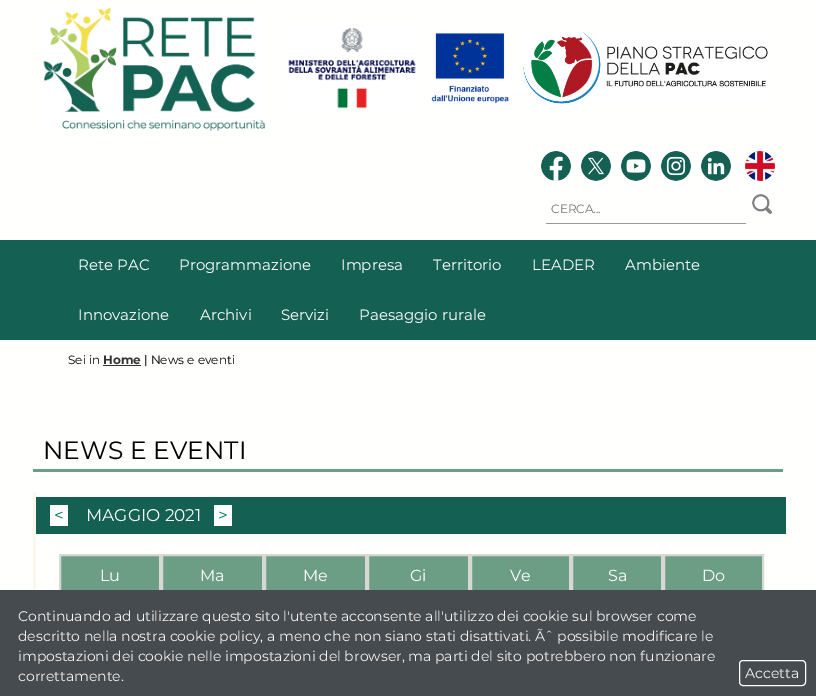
%!PS
<< /PageSize [816 696] >> setpagedevice
/rgb { 3 { 255 div 3 1 roll } repeat setrgbcolor } def
/font { [ exch dup neg 0 0 3 -1 roll 0 0 ] selectfont } def
/roundrect { 5 dict begin { /r /h /w /y /x } { exch def } forall
  x r add y moveto x w add y 2 copy h add r arct x w add y h add x 1 index r arct
  x y h add x y r arct x y 2 copy exch w add exch r arct closepath end } def
/picture { 5 dict begin { /h /w /y /x /name } { exch def } forall
  gsave x y translate w h scale
  w h 8 [w 0 0 h 0 0] name (r) file false 3 colorimage grestore end } def
0 696 translate 1 -1 scale
4 setmiterlimit
255 255 253 rgb
0 0 816 696 rectfill
(img/1.rgb) 43 8 222 123 picture
(img/2.rgb) 288 27 128 82 picture
(img/3.rgb) 431 33 78 71 picture
(img/4.rgb) 523 32 245 72 picture
(img/5.rgb) 541 151 30 30 picture
(img/6.rgb) 581 151 30 30 picture
(img/7.rgb) 621 151 30 30 picture
(img/8.rgb) 661 151 30 30 picture
(img/9.rgb) 701 151 30 30 picture
(img/10.rgb) 745 151 30 30 picture
153 153 153 rgb
546 223 200 1 rectfill
(img/11.rgb) 752 194 20 20 picture
[
  [0 240 816 100 20 97 83]
  [103 365 38 1 51 51 51]
  [33 469 750 3 107 158 133]
  [33 492 3 98 250 248 237]
  [36 497 750 37 20 97 83]
  [50 505 18 21 255 255 255]
  [214 505 18 21 255 255 255]
  [61 556 98 34 107 158 133]
] { aload pop rgb rectfill } forall
215 215 213 rgb
2 setlinewidth
60 555 100 42 rectstroke
107 158 133 rgb
163 556 99 34 rectfill
215 215 213 rgb
162 555 101 42 rectstroke
107 158 133 rgb
266 556 99 34 rectfill
215 215 213 rgb
265 555 101 42 rectstroke
107 158 133 rgb
369 556 99 34 rectfill
215 215 213 rgb
368 555 101 42 rectstroke
107 158 133 rgb
472 556 97 34 rectfill
215 215 213 rgb
471 555 99 42 rectstroke
107 158 133 rgb
573 556 88 34 rectfill
215 215 213 rgb
572 555 90 42 rectstroke
107 158 133 rgb
665 556 97 34 rectfill
215 215 213 rgb
664 555 99 42 rectstroke
70 75 79 rgb
0 590 816 106 rectfill
255 255 255 rgb
1 setlinewidth
739.5 660.5 66 25 3.5 roundrect stroke
/Montserrat-Regular 12 font
117 117 117 rgb
551 213 moveto (CERCA...) show
/Montserrat-Regular 15 font
255 255 255 rgb
[
  [(Rete PAC) 78 270]
  [(Programmazione) 179 270]
  [(Impresa) 341 270]
  [(Territorio) 433 270]
  [(LEADER) 532 270]
  [(Ambiente) 625 270]
  [(Innovazione) 78 320]
  [(Archivi) 200 320]
  [(Servizi) 281 320]
  [(Paesaggio rurale) 359 320]
] { aload pop moveto show } forall
/Montserrat-Regular 12 font
0 0 0 rgb
68 364 moveto (Sei in) show
/Montserrat-Bold 12 font
51 51 51 rgb
103 364 moveto (Home) show
/Montserrat-Regular 12 font
0 0 0 rgb
144 364 moveto (| News e eventi) show
/Montserrat-Regular 25 font
43 459 moveto (NEWS E EVENTI) show
/Montserrat-Regular 17 font
0 119 90 rgb
54 521 moveto (<) show
255 255 255 rgb
86 521 moveto (MAGGIO 2021) show
0 119 90 rgb
218 521 moveto (>) show
/Montserrat-Regular 16 font
255 255 255 rgb
[
  [(Lu) 100 581]
  [(Ma) 200 581]
  [(Me) 303 581]
  [(Gi) 410 581]
  [(Ve) 510 581]
  [(Sa) 608 581]
  [(Do) 702 581]
] { aload pop moveto show } forall
/Montserrat-Regular 14 font
245 243 243 rgb
[
  [(Continuando ad utilizzare questo sito l'utente acconsente all'utilizzo dei cookie sul browser come) 18 621]
  [(descritto nella nostra cookie policy, a meno che non siano stati disattivati. Ãˆ possibile modificare le) 18 641]
  [(impostazioni dei cookie nelle impostazioni del browser, ma parti del sito potrebbero non funzionare) 18 661]
  [(correttamente.) 18 681]
  [(Accetta) 745 678]
] { aload pop moveto show } forall
showpage
